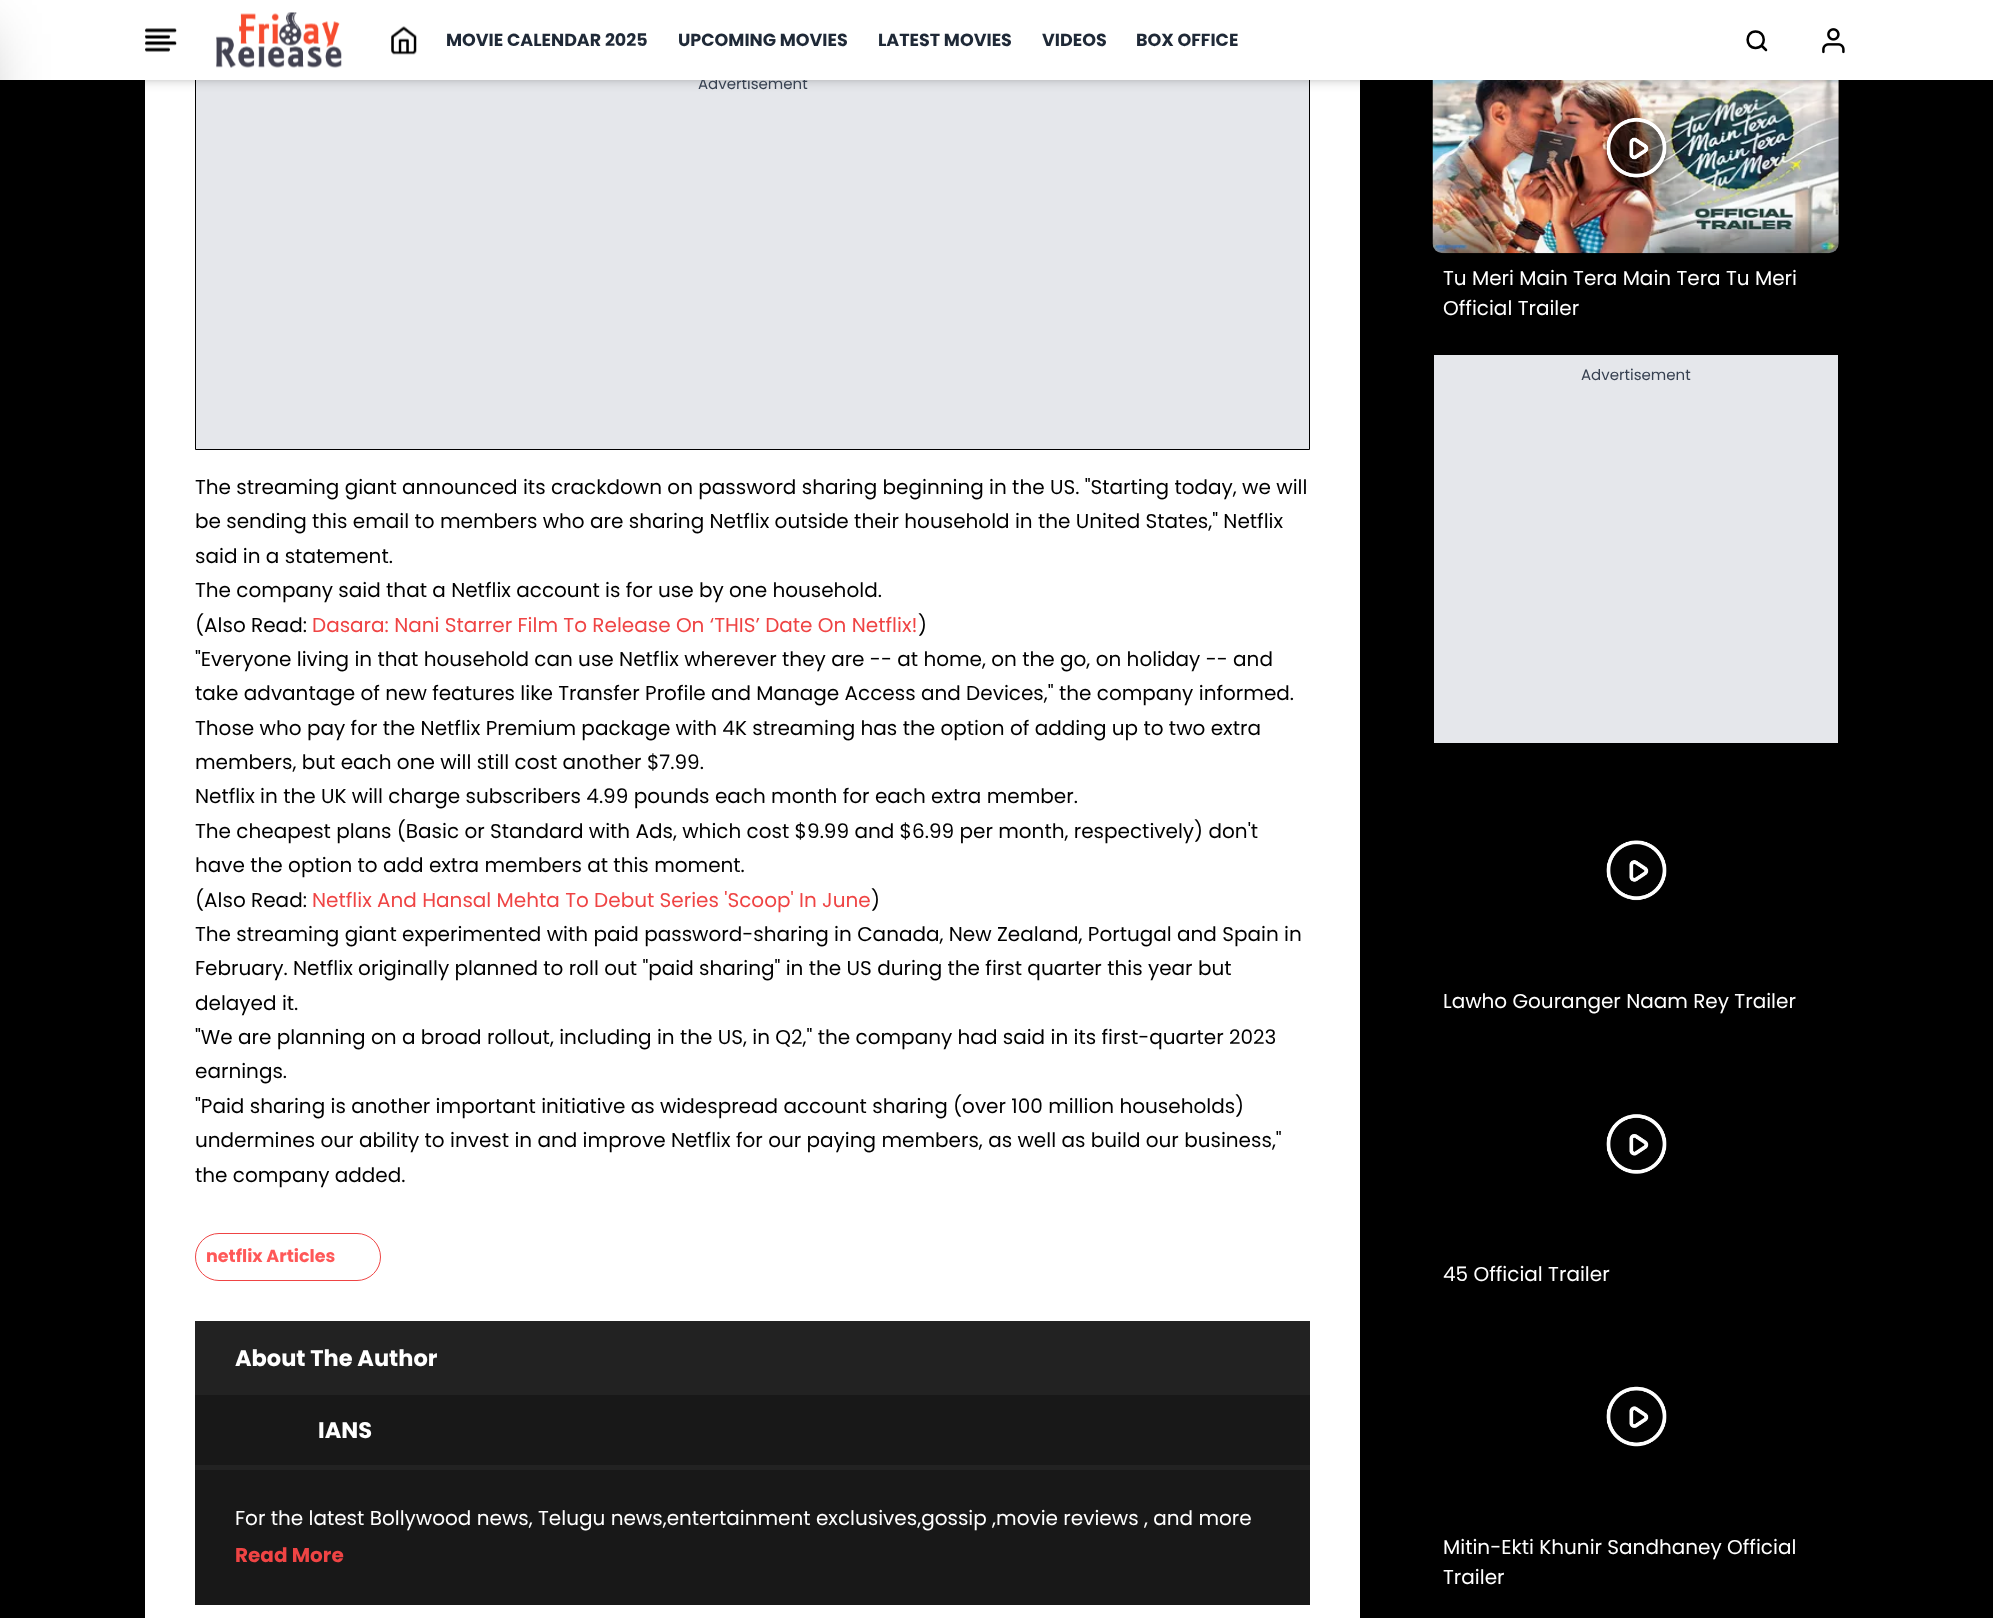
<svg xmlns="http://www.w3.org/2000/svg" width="1993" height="1618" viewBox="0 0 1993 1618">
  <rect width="100%" height="100%" fill="#000"/>
  <path d="M145 80h1215v1538H145z" fill="#fff"/>
  <path d="M196 80h1113v369H196z" fill="#e5e7eb"/>
  <path d="M195.5 63.5h1114v386H195.5z" fill="none" stroke="#000"/>
  <image x="1432" y="80" width="407" height="174" href="img/5.png"/>
  <path d="M3 5h1988v75H3z" fill="#0000001a" filter="blur(2.5px)"/>
  <path d="M1 6h1992v78H1z" fill="#0000001a" filter="blur(4px)"/>
  <rect x="195.5" y="1233.5" width="185" height="47" rx="23.5" fill="none" stroke="#ef4444"/>
  <path d="M195 1321h1115v149H195z" fill="#222"/>
  <path d="M195 1395h1115v70H195z" fill="#181818"/>
  <path d="M195 1470h1115v135H195z" fill="#181818"/>
  <image x="1603" y="117" width="67" height="67" href="img/6.png"/>
  <path d="M1434 355h404v388H1434z" fill="#e5e7eb"/>
  <image x="1606" y="840" width="61" height="61" href="img/7.png"/>
  <image x="1606" y="1114" width="61" height="60" href="img/8.png"/>
  <image x="1606" y="1386" width="61" height="61" href="img/9.png"/>
  <text x="698" y="89" font-family="Poppins" font-size="15" fill="#374151">Advertisement</text>
  <path d="M0 0h1993v80H0z" fill="#fff"/>
  <path d="M-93 34h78v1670H-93z" fill="#00000040" filter="blur(31px)"/>
  <image x="1822" y="28" width="23" height="26" href="img/4.png"/>
  <path d="M1755.5 48C1766.5 48 1766.5 31.5 1755.5 31.5C1745 31.5 1745 48 1755.5 48ZM1766 50L1761.5 45.5" fill="none" stroke="#000" stroke-width="2.5" stroke-linecap="round" stroke-linejoin="round"/>
  <g font-family="Poppins" font-size="17.5" font-weight="bold" fill="#1f2937">
    <text x="1136" y="46">BOX OFFICE</text>
    <text x="1042" y="46">VIDEOS</text>
    <text x="878" y="46">LATEST MOVIES</text>
    <text x="678" y="46">UPCOMING MOVIES</text>
    <text x="446" y="46">MOVIE CALENDAR 2025</text>
  </g>
  <image x="391" y="26" width="26" height="29" href="img/3.png"/>
  <image x="216" y="12" width="126" height="56" href="img/2.png"/>
  <image x="145" y="28" width="32" height="24" href="img/1.png"/>
  <g font-family="Poppins" font-size="20" fill="#000">
    <text x="195" y="494">The streaming giant announced its crackdown on password sharing beginning in the US. "Starting today, we will</text>
    <text x="195" y="528">be sending this email to members who are sharing Netflix outside their household in the United States," Netflix</text>
    <text x="195" y="563">said in a statement.</text>
    <text x="195" y="597">The company said that a Netflix account is for use by one household.</text>
    <text x="195" y="632">(Also Read:</text>
  </g>
  <text x="312" y="632" font-family="Poppins" font-size="20" fill="#ef4444">Dasara: Nani Starrer Film To Release On ‘THIS’ Date On Netflix!</text>
  <g font-family="Poppins" font-size="20" fill="#000">
    <text x="918" y="632">)</text>
    <text x="195" y="666">"Everyone living in that household can use Netflix wherever they are -- at home, on the go, on holiday -- and</text>
    <text x="195" y="700">take advantage of new features like Transfer Profile and Manage Access and Devices," the company informed.</text>
    <text x="195" y="735">Those who pay for the Netflix Premium package with 4K streaming has the option of adding up to two extra</text>
    <text x="195" y="769">members, but each one will still cost another $7.99.</text>
    <text x="195" y="803">Netflix in the UK will charge subscribers 4.99 pounds each month for each extra member.</text>
    <text x="195" y="838">The cheapest plans (Basic or Standard with Ads, which cost $9.99 and $6.99 per month, respectively) don't</text>
    <text x="195" y="872">have the option to add extra members at this moment.</text>
    <text x="195" y="907">(Also Read:</text>
  </g>
  <text x="312" y="907" font-family="Poppins" font-size="20" fill="#ef4444">Netflix And Hansal Mehta To Debut Series 'Scoop' In June</text>
  <g font-family="Poppins" font-size="20" fill="#000">
    <text x="871" y="907">)</text>
    <text x="195" y="941">The streaming giant experimented with paid password-sharing in Canada, New Zealand, Portugal and Spain in</text>
    <text x="195" y="975">February. Netflix originally planned to roll out "paid sharing" in the US during the first quarter this year but</text>
    <text x="195" y="1010">delayed it.</text>
    <text x="195" y="1044">"We are planning on a broad rollout, including in the US, in Q2," the company had said in its first-quarter 2023</text>
    <text x="195" y="1078">earnings.</text>
    <text x="195" y="1113">"Paid sharing is another important initiative as widespread account sharing (over 100 million households)</text>
    <text x="195" y="1147">undermines our ability to invest in and improve Netflix for our paying members, as well as build our business,"</text>
    <text x="195" y="1182">the company added.</text>
  </g>
  <text x="206" y="1262" font-family="Poppins" font-size="17.5" font-weight="bold" fill="#ff5858">netflix Articles</text>
  <g font-family="Poppins" font-size="22.5" font-weight="bold" fill="#fff">
    <text x="235" y="1366">About The Author</text>
    <text x="318" y="1438">IANS</text>
  </g>
  <text x="235" y="1525" font-family="Poppins" font-size="20" fill="#fff">For the latest Bollywood news, Telugu news,entertainment exclusives,gossip ,movie reviews , and more</text>
  <text x="235" y="1562" font-family="Poppins" font-size="20" font-weight="bold" fill="#ef4444">Read More</text>
  <g font-family="Poppins" font-size="20" fill="#fff">
    <text x="1443" y="285">Tu Meri Main Tera Main Tera Tu Meri</text>
    <text x="1443" y="315">Official Trailer</text>
  </g>
  <text x="1581" y="380" font-family="Poppins" font-size="15" fill="#374151">Advertisement</text>
  <g font-family="Poppins" font-size="20" fill="#fff">
    <text x="1443" y="1008">Lawho Gouranger Naam Rey Trailer</text>
    <text x="1443" y="1281">45 Official Trailer</text>
    <text x="1443" y="1554">Mitin-Ekti Khunir Sandhaney Official</text>
    <text x="1443" y="1584">Trailer</text>
  </g>
</svg>
